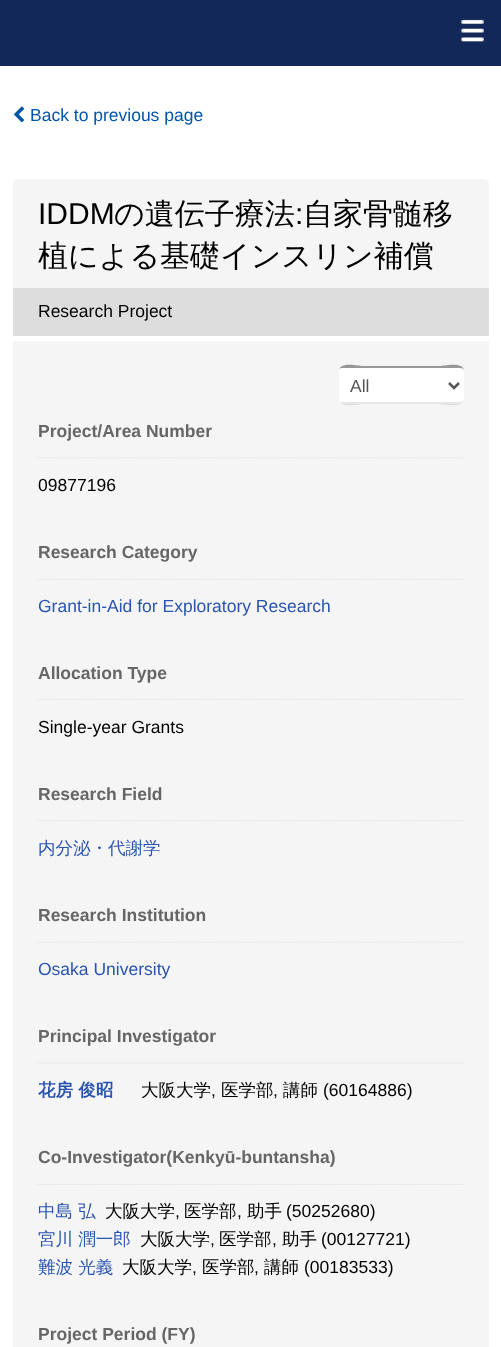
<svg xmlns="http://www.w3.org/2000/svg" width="501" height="1347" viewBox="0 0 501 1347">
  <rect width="100%" height="100%" fill="#fff"/>
  <path d="M0 0h501v66H0z" fill="#122858"/>
  <image x="461" y="19" width="23" height="23" href="img/1.png"/>
  <image x="14" y="106" width="11" height="17" href="img/2.png"/>
  <rect x="13" y="179" width="476" height="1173" rx="5" fill="#f5f5f5"/>
  <path d="M13 288h476v48H13z" fill="#ddd"/>
  <path d="M13 336h476v5H13z" fill="#fff"/>
  <rect x="339" y="366" width="125" height="38" rx="4" fill="#fff"/>
  <path d="M339 399C339 409 360 404 362 404H440C443 404 464 409 464 399C464 401 462 402 460 402H342C340 402 339 401 339 399Z" fill="#0000001a"/>
  <path d="M342 368H460C462 368 464 369 464 371C464 361 443 366 440 366H362C360 366 339 361 339 371C339 369 340 368 342 368Z" fill="#00000066"/>
  <path d="M449 383L454 388L459 383" fill="none" stroke="#555" stroke-width="2.5"/>
  <path d="M37.5 458H464" fill="none" stroke="#ddd" stroke-width="1.2" stroke-dasharray="1.25 1.25"/>
  <path d="M37.5 579.5H464" fill="none" stroke="#ddd" stroke-width="1.2" stroke-dasharray="1.25 1.25"/>
  <path d="M37.5 699.5H464" fill="none" stroke="#ddd" stroke-width="1.2" stroke-dasharray="1.25 1.25"/>
  <path d="M37.5 820.5H464" fill="none" stroke="#ddd" stroke-width="1.2" stroke-dasharray="1.25 1.25"/>
  <path d="M37.5 942H464" fill="none" stroke="#ddd" stroke-width="1.2" stroke-dasharray="1.25 1.25"/>
  <path d="M37.5 1063H464" fill="none" stroke="#ddd" stroke-width="1.2" stroke-dasharray="1.25 1.25"/>
  <path d="M37.5 1184.5H464" fill="none" stroke="#ddd" stroke-width="1.2" stroke-dasharray="1.25 1.25"/>
  <text x="30" y="121" font-family="Liberation Sans" font-size="17.5" fill="#05a">Back to previous page</text>
  <text x="38" y="224" font-family="Liberation Sans" font-size="30" fill="#000">IDDM</text>
  <text x="114" y="224" font-family="WenQuanYi Zen Hei" font-size="30" font-weight="500" fill="#000">の遺伝子療法</text>
  <text x="295" y="224" font-family="Liberation Sans" font-size="30" fill="#000">:</text>
  <g font-family="WenQuanYi Zen Hei" font-size="30" font-weight="500" fill="#000">
    <text x="303" y="224">自家骨髄移</text>
    <text x="38" y="266">植による基礎インスリン補償</text>
  </g>
  <text x="38" y="317" font-family="Liberation Sans" font-size="17.5" fill="#000">Research Project</text>
  <text x="350" y="392" font-family="Liberation Sans" font-size="17.5" fill="#555">All</text>
  <text x="38" y="437" font-family="Liberation Sans" font-size="17.5" font-weight="bold" fill="#666">Project/Area Number</text>
  <text x="38" y="491" font-family="Liberation Sans" font-size="17.5" fill="#000">09877196</text>
  <text x="38" y="558" font-family="Liberation Sans" font-size="17.5" font-weight="bold" fill="#666">Research Category</text>
  <text x="38" y="612" font-family="Liberation Sans" font-size="17.5" fill="#2954af">Grant-in-Aid for Exploratory Research</text>
  <text x="38" y="679" font-family="Liberation Sans" font-size="17.5" font-weight="bold" fill="#666">Allocation Type</text>
  <text x="38" y="733" font-family="Liberation Sans" font-size="17.5" fill="#000">Single-year Grants</text>
  <text x="38" y="800" font-family="Liberation Sans" font-size="17.5" font-weight="bold" fill="#666">Research Field</text>
  <text x="38" y="854" font-family="WenQuanYi Zen Hei" font-size="17.5" font-weight="500" fill="#2954af">内分泌・代謝学</text>
  <text x="38" y="921" font-family="Liberation Sans" font-size="17.5" font-weight="bold" fill="#666">Research Institution</text>
  <text x="38" y="975" font-family="Liberation Sans" font-size="17.5" fill="#2954af">Osaka University</text>
  <text x="38" y="1042" font-family="Liberation Sans" font-size="17.5" font-weight="bold" fill="#666">Principal Investigator</text>
  <text x="38" y="1096" font-family="WenQuanYi Zen Hei" font-size="17.5" font-weight="bold" fill="#2954af">花房 俊昭</text>
  <text x="141" y="1096" font-family="WenQuanYi Zen Hei" font-size="17.5" font-weight="500" fill="#000">大阪大学</text>
  <text x="211" y="1096" font-family="Liberation Sans" font-size="17.5" fill="#000">,</text>
  <text x="221" y="1096" font-family="WenQuanYi Zen Hei" font-size="17.5" font-weight="500" fill="#000">医学部</text>
  <text x="273" y="1096" font-family="Liberation Sans" font-size="17.5" fill="#000">,</text>
  <text x="283" y="1096" font-family="WenQuanYi Zen Hei" font-size="17.5" font-weight="500" fill="#000">講師</text>
  <text x="323" y="1096" font-family="Liberation Sans" font-size="17.5" fill="#000">(60164886)</text>
  <text x="38" y="1163" font-family="Liberation Sans" font-size="17.5" font-weight="bold" fill="#666">Co-Investigator(Kenkyū-buntansha)</text>
  <text x="38" y="1217" font-family="WenQuanYi Zen Hei" font-size="17.5" font-weight="500" fill="#2954af">中島 弘</text>
  <text x="105" y="1217" font-family="WenQuanYi Zen Hei" font-size="17.5" font-weight="500" fill="#000">大阪大学</text>
  <text x="175" y="1217" font-family="Liberation Sans" font-size="17.5" fill="#000">,</text>
  <text x="184" y="1217" font-family="WenQuanYi Zen Hei" font-size="17.5" font-weight="500" fill="#000">医学部</text>
  <text x="237" y="1217" font-family="Liberation Sans" font-size="17.5" fill="#000">,</text>
  <text x="247" y="1217" font-family="WenQuanYi Zen Hei" font-size="17.5" font-weight="500" fill="#000">助手</text>
  <text x="286" y="1217" font-family="Liberation Sans" font-size="17.5" fill="#000">(50252680)</text>
  <text x="38" y="1245" font-family="WenQuanYi Zen Hei" font-size="17.5" font-weight="500" fill="#2954af">宮川 潤一郎</text>
  <text x="140" y="1245" font-family="WenQuanYi Zen Hei" font-size="17.5" font-weight="500" fill="#000">大阪大学</text>
  <text x="210" y="1245" font-family="Liberation Sans" font-size="17.5" fill="#000">,</text>
  <text x="219" y="1245" font-family="WenQuanYi Zen Hei" font-size="17.5" font-weight="500" fill="#000">医学部</text>
  <text x="272" y="1245" font-family="Liberation Sans" font-size="17.5" fill="#000">,</text>
  <text x="282" y="1245" font-family="WenQuanYi Zen Hei" font-size="17.5" font-weight="500" fill="#000">助手</text>
  <text x="321" y="1245" font-family="Liberation Sans" font-size="17.5" fill="#000">(00127721)</text>
  <text x="38" y="1273" font-family="WenQuanYi Zen Hei" font-size="17.5" font-weight="500" fill="#2954af">難波 光義</text>
  <text x="122" y="1273" font-family="WenQuanYi Zen Hei" font-size="17.5" font-weight="500" fill="#000">大阪大学</text>
  <text x="192" y="1273" font-family="Liberation Sans" font-size="17.5" fill="#000">,</text>
  <text x="202" y="1273" font-family="WenQuanYi Zen Hei" font-size="17.5" font-weight="500" fill="#000">医学部</text>
  <text x="254" y="1273" font-family="Liberation Sans" font-size="17.5" fill="#000">,</text>
  <text x="264" y="1273" font-family="WenQuanYi Zen Hei" font-size="17.5" font-weight="500" fill="#000">講師</text>
  <text x="304" y="1273" font-family="Liberation Sans" font-size="17.5" fill="#000">(00183533)</text>
  <text x="38" y="1340" font-family="Liberation Sans" font-size="17.5" font-weight="bold" fill="#666">Project Period (FY)</text>
</svg>
